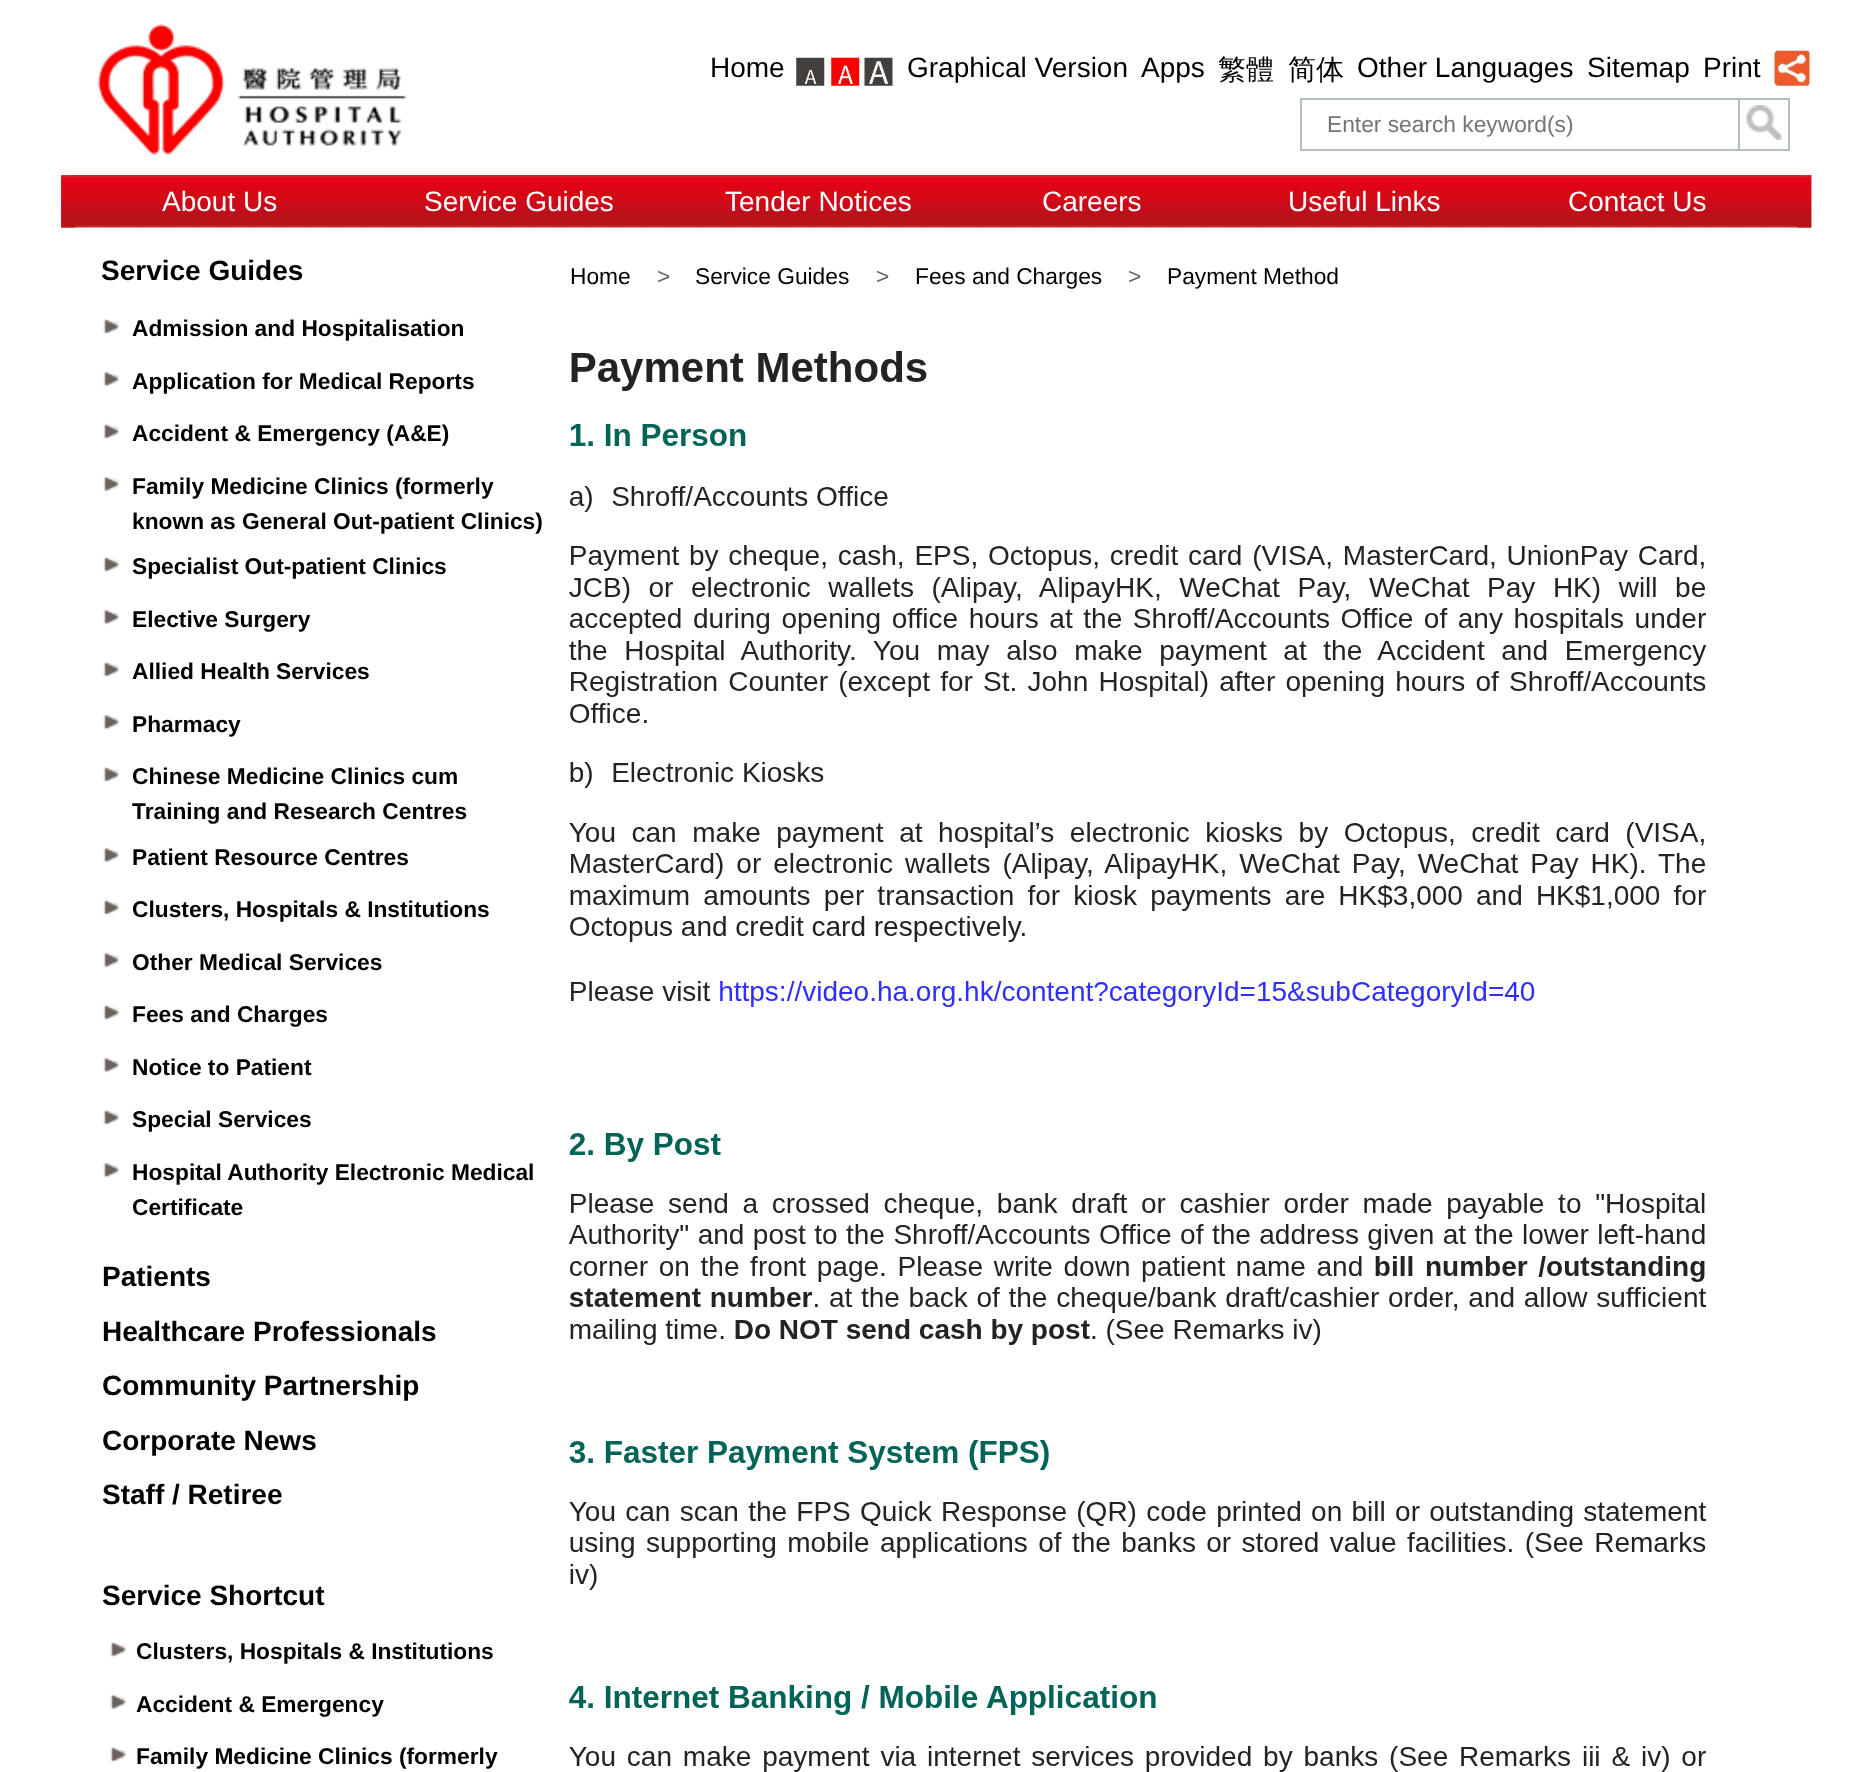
<svg xmlns="http://www.w3.org/2000/svg" width="1870" height="1772" viewBox="0 0 1870 1772">
  <rect width="100%" height="100%" fill="#fff"/>
  <image x="97" y="24" width="310" height="133" href="img/1.png"/>
  <image x="796" y="57" width="29" height="29" href="img/2.png"/>
  <image x="831" y="57" width="29" height="29" href="img/3.png"/>
  <image x="864" y="57" width="29" height="29" href="img/4.png"/>
  <image x="1774" y="50" width="36" height="36" href="img/5.png"/>
  <path d="M1300 98h438v2H1300z" fill="#b4bfbb"/>
  <path d="M1300 149h438v2H1300z" fill="#b4bfbb"/>
  <path d="M1300 98h2v53H1300z" fill="#b4bfbb"/>
  <image x="1746" y="105" width="36" height="35" href="img/6.png"/>
  <path d="M1739 99h50v51H1739z" fill="none" stroke="#b4bfbb" stroke-width="2"/>
  <image x="61" y="175" width="1751" height="53" href="img/7.png"/>
  <image x="61" y="175" width="15" height="53" href="img/8.png"/>
  <image x="1797" y="175" width="15" height="53" href="img/9.png"/>
  <image x="103" y="318" width="16" height="17" href="img/10.png"/>
  <image x="103" y="371" width="16" height="16" href="img/11.png"/>
  <image x="103" y="423" width="16" height="17" href="img/10.png"/>
  <image x="103" y="476" width="16" height="16" href="img/11.png"/>
  <image x="103" y="556" width="16" height="17" href="img/10.png"/>
  <image x="103" y="609" width="16" height="16" href="img/11.png"/>
  <image x="103" y="661" width="16" height="17" href="img/10.png"/>
  <image x="103" y="714" width="16" height="16" href="img/11.png"/>
  <image x="103" y="766" width="16" height="17" href="img/10.png"/>
  <image x="103" y="847" width="16" height="16" href="img/11.png"/>
  <image x="103" y="899" width="16" height="17" href="img/10.png"/>
  <image x="103" y="952" width="16" height="16" href="img/11.png"/>
  <image x="103" y="1004" width="16" height="17" href="img/10.png"/>
  <image x="103" y="1057" width="16" height="16" href="img/11.png"/>
  <image x="103" y="1109" width="16" height="17" href="img/10.png"/>
  <image x="103" y="1162" width="16" height="16" href="img/11.png"/>
  <image x="110" y="1641" width="16" height="17" href="img/10.png"/>
  <image x="110" y="1694" width="16" height="16" href="img/11.png"/>
  <image x="110" y="1746" width="16" height="17" href="img/10.png"/>
  <image x="568" y="351" width="1139" height="1421" href="img/12.png"/>
  <g font-family="Liberation Sans" font-size="28" fill="#000">
    <text x="710" y="77">Home</text>
    <text x="907" y="77">Graphical Version</text>
    <text x="1141" y="77">Apps</text>
  </g>
  <g font-family="WenQuanYi Zen Hei" font-size="28" font-weight="500" fill="#000">
    <text x="1218" y="79">繁體</text>
    <text x="1288" y="79">简体</text>
  </g>
  <g font-family="Liberation Sans" font-size="28" fill="#000">
    <text x="1357" y="77">Other Languages</text>
    <text x="1587" y="77">Sitemap</text>
    <text x="1703" y="77">Print</text>
  </g>
  <text x="1327" y="132" font-family="Liberation Sans" font-size="22.75" fill="#757575">Enter search keyword(s)</text>
  <g font-family="Liberation Sans" font-size="28" fill="#fff">
    <text x="162" y="211">About Us</text>
    <text x="424" y="211">Service Guides</text>
    <text x="725" y="211">Tender Notices</text>
    <text x="1042" y="211">Careers</text>
    <text x="1288" y="211">Useful Links</text>
    <text x="1568" y="211">Contact Us</text>
  </g>
  <text x="101" y="280" font-family="Liberation Sans" font-size="28" font-weight="bold" fill="#000">Service Guides</text>
  <g font-family="Liberation Sans" font-size="22.75" font-weight="bold" fill="#000">
    <text x="132" y="336">Admission and Hospitalisation</text>
    <text x="132" y="389">Application for Medical Reports</text>
    <text x="132" y="441">Accident &amp; Emergency (A&amp;E)</text>
    <text x="132" y="494">Family Medicine Clinics (formerly</text>
    <text x="132" y="529">known as General Out-patient Clinics)</text>
    <text x="132" y="574">Specialist Out-patient Clinics</text>
    <text x="132" y="627">Elective Surgery</text>
    <text x="132" y="679">Allied Health Services</text>
    <text x="132" y="732">Pharmacy</text>
    <text x="132" y="784">Chinese Medicine Clinics cum</text>
    <text x="132" y="819">Training and Research Centres</text>
    <text x="132" y="865">Patient Resource Centres</text>
    <text x="132" y="917">Clusters, Hospitals &amp; Institutions</text>
    <text x="132" y="970">Other Medical Services</text>
    <text x="132" y="1022">Fees and Charges</text>
    <text x="132" y="1075">Notice to Patient</text>
    <text x="132" y="1127">Special Services</text>
    <text x="132" y="1180">Hospital Authority Electronic Medical</text>
    <text x="132" y="1215">Certificate</text>
  </g>
  <g font-family="Liberation Sans" font-size="28" font-weight="bold" fill="#000">
    <text x="102" y="1286">Patients</text>
    <text x="102" y="1341">Healthcare Professionals</text>
    <text x="102" y="1395">Community Partnership</text>
    <text x="102" y="1450">Corporate News</text>
    <text x="102" y="1504">Staff / Retiree</text>
    <text x="102" y="1605">Service Shortcut</text>
  </g>
  <g font-family="Liberation Sans" font-size="22.75" font-weight="bold" fill="#000">
    <text x="136" y="1659">Clusters, Hospitals &amp; Institutions</text>
    <text x="136" y="1712">Accident &amp; Emergency</text>
    <text x="136" y="1764">Family Medicine Clinics (formerly</text>
  </g>
  <text x="570" y="284" font-family="Liberation Sans" font-size="22.75" fill="#000">Home</text>
  <text x="657" y="284" font-family="Liberation Sans" font-size="22.75" fill="#666">&gt;</text>
  <text x="695" y="284" font-family="Liberation Sans" font-size="22.75" fill="#000">Service Guides</text>
  <text x="876" y="284" font-family="Liberation Sans" font-size="22.75" fill="#666">&gt;</text>
  <text x="915" y="284" font-family="Liberation Sans" font-size="22.75" fill="#000">Fees and Charges</text>
  <text x="1128" y="284" font-family="Liberation Sans" font-size="22.75" fill="#666">&gt;</text>
  <text x="1167" y="284" font-family="Liberation Sans" font-size="22.75" fill="#000">Payment Method</text>
</svg>
